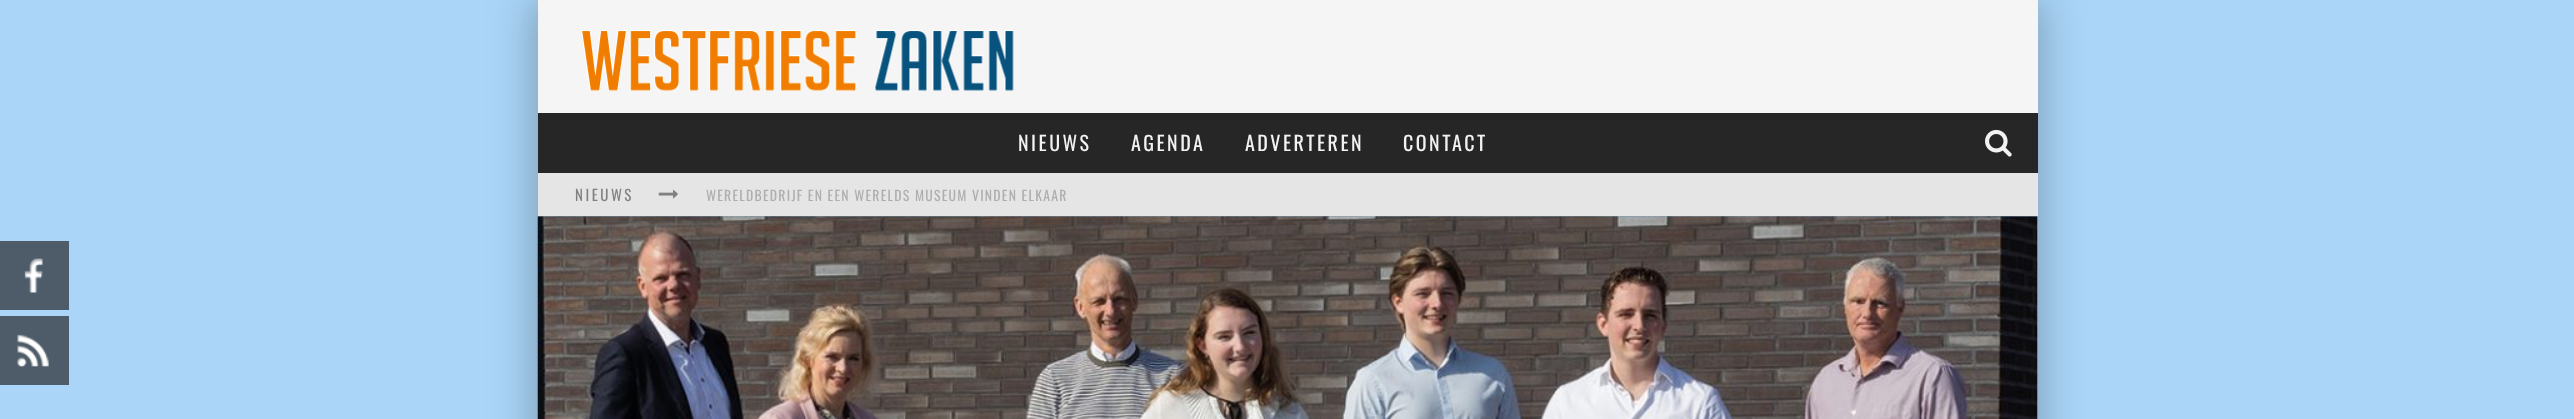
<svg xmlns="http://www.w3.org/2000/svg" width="2574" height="419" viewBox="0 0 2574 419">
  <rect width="100%" height="100%" fill="#aad5f8"/>
  <path d="M525 0h1500v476H525z" fill="#00000026" filter="blur(19px)"/>
  <path d="M550 0h1500v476H550z" fill="#00000026" filter="blur(19px)"/>
  <path d="M538 0h1500v113H538z" fill="#f5f5f5"/>
  <image x="581" y="30" width="433" height="61" href="img/1.png"/>
  <path d="M538 113h1500v60H538z" fill="#262626"/>
  <image x="1985" y="129" width="27" height="28" href="img/2.png"/>
  <path d="M538 173h1500v43H538z" fill="#e5e5e5"/>
  <image x="658" y="189" width="20" height="10" href="img/3.png"/>
  <path d="M0 241h69v69H0z" fill="#4d5c68"/>
  <image x="24" y="258" width="19" height="35" href="img/4.png"/>
  <path d="M0 316h69v69H0z" fill="#4d5c68"/>
  <image x="17" y="334" width="32" height="33" href="img/5.png"/>
  <image x="537" y="216" width="1501" height="203" href="img/6.png"/>
  <g font-family="Oswald" font-size="20" letter-spacing="2.5" fill="#f2f2f2">
    <text x="1018" y="151">NIEUWS</text>
    <text x="1131" y="151">AGENDA</text>
    <text x="1245" y="151">ADVERTEREN</text>
    <text x="1403" y="151">CONTACT</text>
  </g>
  <text x="575" y="201" font-family="Oswald" font-size="15" letter-spacing="2.5" fill="#808080">NIEUWS</text>
  <text x="706" y="201" font-family="Oswald" font-size="13.75" letter-spacing="1.25" fill="#aeaeae">WERELDBEDRIJF EN EEN WERELDS MUSEUM VINDEN ELKAAR</text>
</svg>
